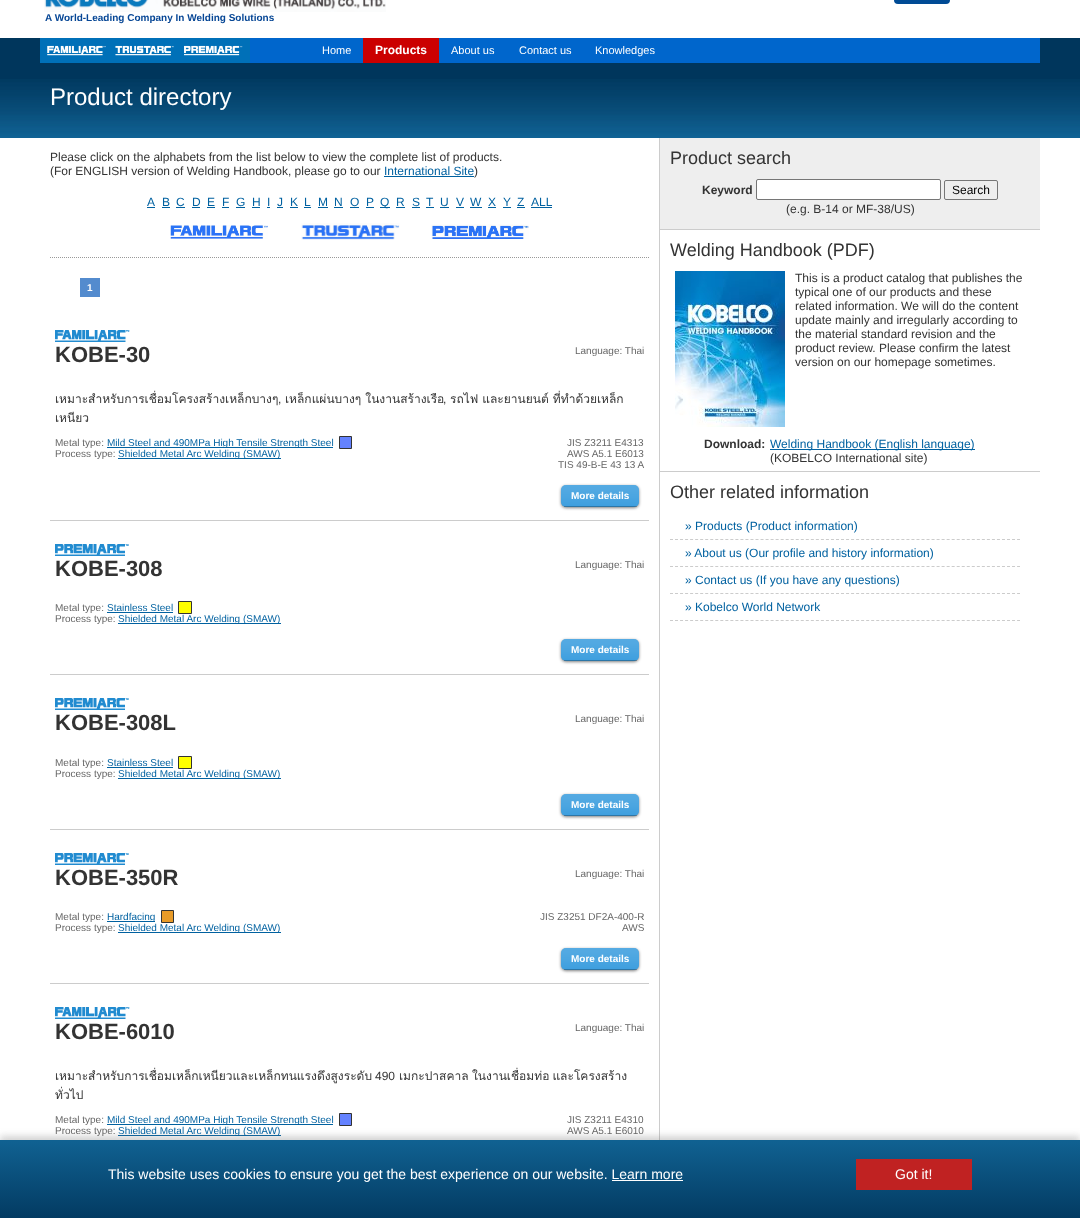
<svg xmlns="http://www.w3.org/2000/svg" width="1080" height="1218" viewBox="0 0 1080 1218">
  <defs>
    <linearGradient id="g1" gradientUnits="userSpaceOnUse" x1="540" y1="1140" x2="540" y2="1218"><stop offset="0.02" stop-color="#106191"/><stop offset="1" stop-color="#033b62"/></linearGradient>
  </defs>
  <rect width="100%" height="100%" fill="#fff"/>
  <rect x="894" y="-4" width="56" height="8" rx="4" fill="#004b95"/>
  <image x="44" y="0" width="342" height="12" href="img/1.png"/>
  <path d="M0 38h1080v41H0z" fill="#00365c"/>
  <path d="M250 38h790v25H250z" fill="#06c"/>
  <image x="40" y="38" width="210" height="25" href="img/2.png"/>
  <path d="M363 38h76v25H363z" fill="#cb0000"/>
  <image x="0" y="79" width="1080" height="59" href="img/3.png"/>
  <path d="M659 138h1v1002H659z" fill="#ccc"/>
  <path d="M384 176h90v1H384z" fill="#0061a0"/>
  <path d="M147 207h8v1H147z" fill="#0061a0"/>
  <path d="M162 207h8v1H162z" fill="#0061a0"/>
  <path d="M176 207h9v1H176z" fill="#0061a0"/>
  <path d="M192 207h8v1H192z" fill="#0061a0"/>
  <path d="M207 207h8v1H207z" fill="#0061a0"/>
  <path d="M222 207h7v1H222z" fill="#0061a0"/>
  <path d="M236 207h9v1H236z" fill="#0061a0"/>
  <path d="M252 207h8v1H252z" fill="#0061a0"/>
  <path d="M267 207h3v1H267z" fill="#0061a0"/>
  <path d="M277 207h6v1H277z" fill="#0061a0"/>
  <path d="M290 207h8v1H290z" fill="#0061a0"/>
  <path d="M304 207h7v1H304z" fill="#0061a0"/>
  <path d="M318 207h10v1H318z" fill="#0061a0"/>
  <path d="M334 207h9v1H334z" fill="#0061a0"/>
  <path d="M350 207h9v1H350z" fill="#0061a0"/>
  <path d="M366 207h8v1H366z" fill="#0061a0"/>
  <path d="M380 207h10v1H380z" fill="#0061a0"/>
  <path d="M396 207h9v1H396z" fill="#0061a0"/>
  <path d="M412 207h8v1H412z" fill="#0061a0"/>
  <path d="M426 207h8v1H426z" fill="#0061a0"/>
  <path d="M440 207h9v1H440z" fill="#0061a0"/>
  <path d="M456 207h8v1H456z" fill="#0061a0"/>
  <path d="M470 207h12v1H470z" fill="#0061a0"/>
  <path d="M488 207h8v1H488z" fill="#0061a0"/>
  <path d="M503 207h8v1H503z" fill="#0061a0"/>
  <path d="M517 207h8v1H517z" fill="#0061a0"/>
  <path d="M531 207h21v1H531z" fill="#0061a0"/>
  <image x="170" y="225" width="98" height="14" href="img/4.png"/>
  <image x="301" y="223" width="99" height="17" href="img/5.png"/>
  <image x="431" y="224" width="98" height="15" href="img/6.png"/>
  <path d="M50 257.5H649" fill="none" stroke="#999" stroke-dasharray="1 1"/>
  <path d="M80 278h20v19H80z" fill="#538bce"/>
  <path d="M50 520h599v1H50z" fill="#ccc"/>
  <image x="55" y="330" width="75" height="12" href="img/7.png"/>
  <path d="M107 447h226v1H107z" fill="#0061a0"/>
  <path d="M339.5 436.5h12v12H339.5z" fill="#6482ff" stroke="#333"/>
  <path d="M118 458h163v1H118z" fill="#0061a0"/>
  <rect x="561" y="486" width="78" height="22" rx="5" fill="#00000080" filter="blur(1.5px)"/>
  <rect x="561" y="485" width="78" height="22" rx="5" fill="#1c8ed9"/>
  <image x="561" y="485" width="78" height="22" href="img/8.png"/>
  <path d="M564 506h73v1H564z" fill="#00000040"/>
  <path d="M50 674h599v1H50z" fill="#ccc"/>
  <image x="55" y="544" width="74" height="12" href="img/9.png"/>
  <path d="M107 612h66v1H107z" fill="#0061a0"/>
  <path d="M178.5 601.5h13v12H178.5z" fill="#ff0" stroke="#333"/>
  <path d="M118 623h163v1H118z" fill="#0061a0"/>
  <rect x="561" y="640" width="78" height="22" rx="5" fill="#00000080" filter="blur(1.5px)"/>
  <rect x="561" y="639" width="78" height="22" rx="5" fill="#1c8ed9"/>
  <image x="561" y="639" width="78" height="22" href="img/8.png"/>
  <path d="M564 660h73v1H564z" fill="#00000040"/>
  <path d="M50 829h599v1H50z" fill="#ccc"/>
  <image x="55" y="698" width="74" height="12" href="img/9.png"/>
  <path d="M107 767h66v1H107z" fill="#0061a0"/>
  <path d="M178.5 756.5h13v12H178.5z" fill="#ff0" stroke="#333"/>
  <path d="M118 778h163v1H118z" fill="#0061a0"/>
  <rect x="561" y="795" width="78" height="22" rx="5" fill="#00000080" filter="blur(1.5px)"/>
  <rect x="561" y="794" width="78" height="22" rx="5" fill="#1c8ed9"/>
  <image x="561" y="794" width="78" height="22" href="img/8.png"/>
  <path d="M564 815h73v1H564z" fill="#00000040"/>
  <path d="M50 983h599v1H50z" fill="#ccc"/>
  <image x="55" y="853" width="74" height="12" href="img/9.png"/>
  <path d="M107 921h48v1H107z" fill="#0061a0"/>
  <path d="M161.5 910.5h12v12H161.5z" fill="#e89b28" stroke="#333"/>
  <path d="M118 932h163v1H118z" fill="#0061a0"/>
  <rect x="561" y="949" width="78" height="22" rx="5" fill="#00000080" filter="blur(1.5px)"/>
  <rect x="561" y="948" width="78" height="22" rx="5" fill="#1c8ed9"/>
  <image x="561" y="948" width="78" height="22" href="img/8.png"/>
  <path d="M564 969h73v1H564z" fill="#00000040"/>
  <image x="55" y="1007" width="75" height="12" href="img/7.png"/>
  <path d="M107 1124h226v1H107z" fill="#0061a0"/>
  <path d="M339.5 1113.5h12v12H339.5z" fill="#6482ff" stroke="#333"/>
  <path d="M118 1135h163v1H118z" fill="#0061a0"/>
  <path d="M660 138h380v91H660z" fill="#eee"/>
  <rect x="756.5" y="179.5" width="184" height="20" rx="1.5" fill="#fff" stroke="#767676"/>
  <rect x="944.5" y="180.5" width="53" height="19" rx="1.5" fill="none" stroke="#767676"/>
  <path d="M660 229h380v1H660z" fill="#ccc"/>
  <image x="675" y="271" width="110" height="156" href="img/10.png"/>
  <path d="M770 449h205v1H770z" fill="#0061a0"/>
  <path d="M660 471h380v1H660z" fill="#ccc"/>
  <path d="M670 539.5H1020" fill="none" stroke="#ccc" stroke-dasharray="3 2.03"/>
  <path d="M670 566.5H1020" fill="none" stroke="#ccc" stroke-dasharray="3 2.03"/>
  <path d="M670 593.5H1020" fill="none" stroke="#ccc" stroke-dasharray="3 2.03"/>
  <path d="M670 620.5H1020" fill="none" stroke="#ccc" stroke-dasharray="3 2.03"/>
  <path d="M0 1136h1080v78H0z" fill="#7070704f" filter="blur(3.5px)"/>
  <path d="M0 1140h1080v78H0z" fill="url(#g1)"/>
  <path d="M612 1180h71v1H612z" fill="#fff"/>
  <path d="M856 1159h116v31H856z" fill="#c02222"/>
  <text x="45" y="21" font-family="Liberation Sans" font-size="10" font-weight="bold" fill="#064695">A World-Leading Company In Welding Solutions</text>
  <text x="322" y="54" font-family="Liberation Sans" font-size="11" fill="#fff">Home</text>
  <text x="375" y="54" font-family="Liberation Sans" font-size="12" font-weight="bold" fill="#fff">Products</text>
  <g font-family="Liberation Sans" font-size="11" fill="#fff">
    <text x="451" y="54">About us</text>
    <text x="519" y="54">Contact us</text>
    <text x="595" y="54">Knowledges</text>
  </g>
  <text x="50" y="105" font-family="Liberation Sans" font-size="24" fill="#fff">Product directory</text>
  <g font-family="Liberation Sans" font-size="12" fill="#333">
    <text x="50" y="161">Please click on the alphabets from the list below to view the complete list of products.</text>
    <text x="50" y="175">(For ENGLISH version of Welding Handbook, please go to our</text>
  </g>
  <text x="384" y="175" font-family="Liberation Sans" font-size="12" fill="#0061a0">International Site</text>
  <text x="474" y="175" font-family="Liberation Sans" font-size="12" fill="#333">)</text>
  <g font-family="Liberation Sans" font-size="12" fill="#0061a0">
    <text x="147" y="206">A</text>
    <text x="162" y="206">B</text>
    <text x="176" y="206">C</text>
    <text x="192" y="206">D</text>
    <text x="207" y="206">E</text>
    <text x="222" y="206">F</text>
    <text x="236" y="206">G</text>
    <text x="252" y="206">H</text>
    <text x="267" y="206">I</text>
    <text x="277" y="206">J</text>
    <text x="290" y="206">K</text>
    <text x="304" y="206">L</text>
    <text x="318" y="206">M</text>
    <text x="334" y="206">N</text>
    <text x="350" y="206">O</text>
    <text x="366" y="206">P</text>
    <text x="380" y="206">Q</text>
    <text x="396" y="206">R</text>
    <text x="412" y="206">S</text>
    <text x="426" y="206">T</text>
    <text x="440" y="206">U</text>
    <text x="456" y="206">V</text>
    <text x="470" y="206">W</text>
    <text x="488" y="206">X</text>
    <text x="503" y="206">Y</text>
    <text x="517" y="206">Z</text>
    <text x="531" y="206">ALL</text>
  </g>
  <text x="87" y="291" font-family="Liberation Sans" font-size="10" font-weight="bold" fill="#fff">1</text>
  <text x="55" y="362" font-family="Liberation Sans" font-size="22" font-weight="bold" fill="#333">KOBE-30</text>
  <text x="575" y="354" font-family="Liberation Sans" font-size="10" fill="#666">Language: Thai</text>
  <text x="55" y="403" font-family="Loma" font-size="12" fill="#333">เหมาะสำหรับการเชื่อมโครงสร้างเหล็กบางๆ</text>
  <text x="278" y="403" font-family="Liberation Sans" font-size="12" fill="#333">,</text>
  <text x="285" y="403" font-family="Loma" font-size="12" fill="#333">เหล็กแผ่นบางๆ ในงานสร้างเรือ</text>
  <text x="443" y="403" font-family="Liberation Sans" font-size="12" fill="#333">,</text>
  <g font-family="Loma" font-size="12" fill="#333">
    <text x="450" y="403">รถไฟ และยานยนต์ ที่ทำด้วยเหล็ก</text>
    <text x="55" y="422">เหนียว</text>
  </g>
  <text x="55" y="446" font-family="Liberation Sans" font-size="10" fill="#666">Metal type:</text>
  <text x="107" y="446" font-family="Liberation Sans" font-size="10" fill="#0061a0">Mild Steel and 490MPa High Tensile Strength Steel</text>
  <text x="55" y="457" font-family="Liberation Sans" font-size="10" fill="#666">Process type:</text>
  <text x="118" y="457" font-family="Liberation Sans" font-size="10" fill="#0061a0">Shielded Metal Arc Welding (SMAW)</text>
  <g font-family="Liberation Sans" font-size="10" fill="#666">
    <text x="567" y="446">JIS Z3211 E4313</text>
    <text x="567" y="457">AWS A5.1 E6013</text>
    <text x="558" y="468">TIS 49-B-E 43 13 A</text>
  </g>
  <text x="571" y="499" font-family="Liberation Sans" font-size="10" font-weight="bold" fill="#fff">More details</text>
  <text x="55" y="576" font-family="Liberation Sans" font-size="22" font-weight="bold" fill="#333">KOBE-308</text>
  <g font-family="Liberation Sans" font-size="10" fill="#666">
    <text x="575" y="568">Language: Thai</text>
    <text x="55" y="611">Metal type:</text>
  </g>
  <text x="107" y="611" font-family="Liberation Sans" font-size="10" fill="#0061a0">Stainless Steel</text>
  <text x="55" y="622" font-family="Liberation Sans" font-size="10" fill="#666">Process type:</text>
  <text x="118" y="622" font-family="Liberation Sans" font-size="10" fill="#0061a0">Shielded Metal Arc Welding (SMAW)</text>
  <text x="571" y="653" font-family="Liberation Sans" font-size="10" font-weight="bold" fill="#fff">More details</text>
  <text x="55" y="730" font-family="Liberation Sans" font-size="22" font-weight="bold" fill="#333">KOBE-308L</text>
  <g font-family="Liberation Sans" font-size="10" fill="#666">
    <text x="575" y="722">Language: Thai</text>
    <text x="55" y="766">Metal type:</text>
  </g>
  <text x="107" y="766" font-family="Liberation Sans" font-size="10" fill="#0061a0">Stainless Steel</text>
  <text x="55" y="777" font-family="Liberation Sans" font-size="10" fill="#666">Process type:</text>
  <text x="118" y="777" font-family="Liberation Sans" font-size="10" fill="#0061a0">Shielded Metal Arc Welding (SMAW)</text>
  <text x="571" y="808" font-family="Liberation Sans" font-size="10" font-weight="bold" fill="#fff">More details</text>
  <text x="55" y="885" font-family="Liberation Sans" font-size="22" font-weight="bold" fill="#333">KOBE-350R</text>
  <g font-family="Liberation Sans" font-size="10" fill="#666">
    <text x="575" y="877">Language: Thai</text>
    <text x="55" y="920">Metal type:</text>
  </g>
  <text x="107" y="920" font-family="Liberation Sans" font-size="10" fill="#0061a0">Hardfacing</text>
  <text x="55" y="931" font-family="Liberation Sans" font-size="10" fill="#666">Process type:</text>
  <text x="118" y="931" font-family="Liberation Sans" font-size="10" fill="#0061a0">Shielded Metal Arc Welding (SMAW)</text>
  <g font-family="Liberation Sans" font-size="10" fill="#666">
    <text x="540" y="920">JIS Z3251 DF2A-400-R</text>
    <text x="622" y="931">AWS</text>
  </g>
  <text x="571" y="962" font-family="Liberation Sans" font-size="10" font-weight="bold" fill="#fff">More details</text>
  <text x="55" y="1039" font-family="Liberation Sans" font-size="22" font-weight="bold" fill="#333">KOBE-6010</text>
  <text x="575" y="1031" font-family="Liberation Sans" font-size="10" fill="#666">Language: Thai</text>
  <text x="55" y="1080" font-family="Loma" font-size="12" fill="#333">เหมาะสำหรับการเชื่อมเหล็กเหนียวและเหล็กทนแรงดึงสูงระดับ</text>
  <text x="375" y="1080" font-family="Liberation Sans" font-size="12" fill="#333">490</text>
  <g font-family="Loma" font-size="12" fill="#333">
    <text x="399" y="1080">เมกะปาสคาล</text>
    <text x="472" y="1080" word-spacing="-1">ในงานเชื่อมท่อ และโครงสร้าง</text>
    <text x="55" y="1099">ทั่วไป</text>
  </g>
  <text x="55" y="1123" font-family="Liberation Sans" font-size="10" fill="#666">Metal type:</text>
  <text x="107" y="1123" font-family="Liberation Sans" font-size="10" fill="#0061a0">Mild Steel and 490MPa High Tensile Strength Steel</text>
  <text x="55" y="1134" font-family="Liberation Sans" font-size="10" fill="#666">Process type:</text>
  <text x="118" y="1134" font-family="Liberation Sans" font-size="10" fill="#0061a0">Shielded Metal Arc Welding (SMAW)</text>
  <g font-family="Liberation Sans" font-size="10" fill="#666">
    <text x="567" y="1123">JIS Z3211 E4310</text>
    <text x="567" y="1134">AWS A5.1 E6010</text>
  </g>
  <text x="670" y="164" font-family="Liberation Sans" font-size="18" fill="#333">Product search</text>
  <text x="702" y="194" font-family="Liberation Sans" font-size="12" font-weight="bold" fill="#333">Keyword</text>
  <text x="952" y="194" font-family="Liberation Sans" font-size="12" fill="#000">Search</text>
  <text x="786" y="213" font-family="Liberation Sans" font-size="12" fill="#333">(e.g. B-14 or MF-38/US)</text>
  <text x="670" y="256" font-family="Liberation Sans" font-size="18" fill="#333">Welding Handbook (PDF)</text>
  <g font-family="Liberation Sans" font-size="12" fill="#333">
    <text x="795" y="282">This is a product catalog that publishes the</text>
    <text x="795" y="296">typical one of our products and these</text>
    <text x="795" y="310">related information. We will do the content</text>
    <text x="795" y="324">update mainly and irregularly according to</text>
    <text x="795" y="338">the material standard revision and the</text>
    <text x="795" y="352">product review. Please confirm the latest</text>
    <text x="795" y="366">version on our homepage sometimes.</text>
  </g>
  <text x="704" y="448" font-family="Liberation Sans" font-size="12" font-weight="bold" fill="#333">Download:</text>
  <text x="770" y="448" font-family="Liberation Sans" font-size="12" fill="#0061a0">Welding Handbook (English language)</text>
  <text x="770" y="462" font-family="Liberation Sans" font-size="12" fill="#333">(KOBELCO International site)</text>
  <text x="670" y="498" font-family="Liberation Sans" font-size="18" fill="#333">Other related information</text>
  <g font-family="Liberation Sans" font-size="12" fill="#0061a0">
    <text x="685" y="530">» Products (Product information)</text>
    <text x="685" y="557">» About us (Our profile and history information)</text>
    <text x="685" y="584">» Contact us (If you have any questions)</text>
    <text x="685" y="611">» Kobelco World Network</text>
  </g>
  <g font-family="Liberation Sans" font-size="14" fill="#fff">
    <text x="108" y="1179">This website uses cookies to ensure you get the best experience on our website. Learn more</text>
    <text x="895" y="1179">Got it!</text>
  </g>
</svg>
